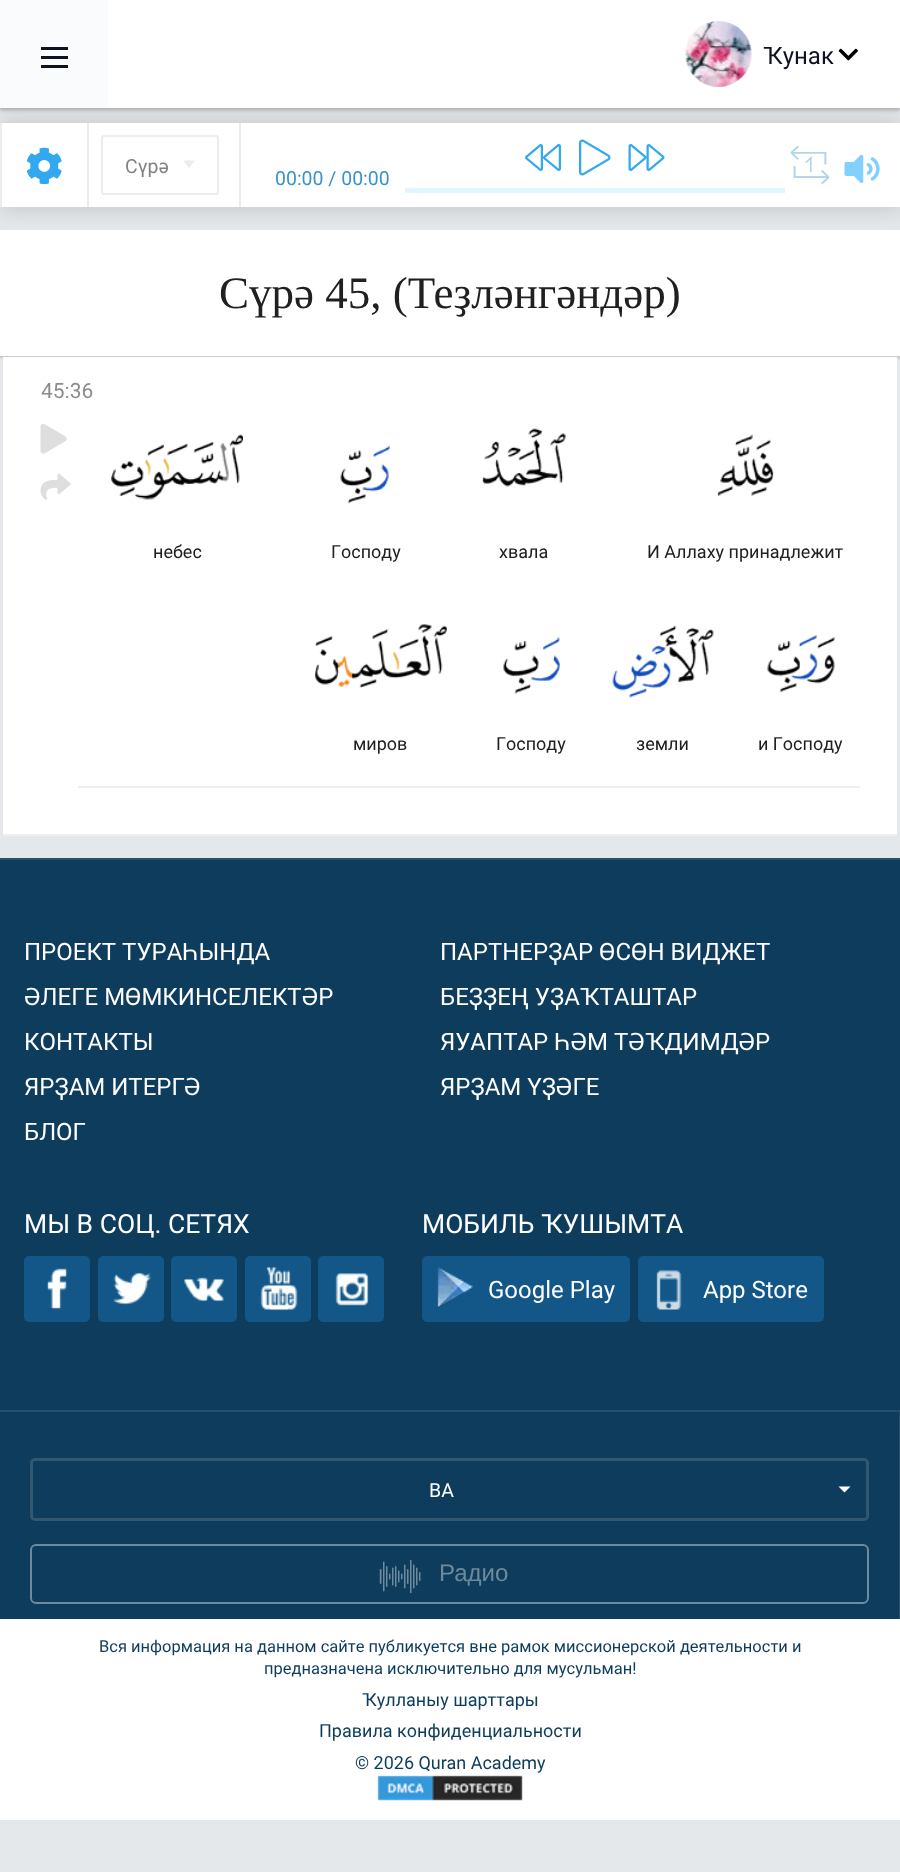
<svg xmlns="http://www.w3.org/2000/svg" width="900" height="1872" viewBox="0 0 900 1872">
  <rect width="100%" height="100%" fill="#e5e8eb"/>
  <path d="M0 2h900v108H0z" fill="#00000033" filter="blur(1.5px)"/>
  <path d="M0 2h900v108H0z" fill="#aaaaaa80" filter="blur(3px)"/>
  <path d="M2 231h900v128H2z" fill="#0000001a" filter="blur(1px)"/>
  <path d="M0 230h900v126H0z" fill="#fff"/>
  <path d="M-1 122h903v87H-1z" fill="#00000026" filter="blur(11px)"/>
  <path d="M108 0h792v108H108z" fill="#fff"/>
  <path d="M0 0h108v108H0z" fill="#fafbfc"/>
  <path d="M41 47h27v3H41z" fill="#0d1322"/>
  <path d="M41 56h27v3H41z" fill="#0d1322"/>
  <path d="M41 65h27v3H41z" fill="#0d1322"/>
  <image x="685" y="21" width="67" height="66" href="img/1.png"/>
  <image x="838" y="48" width="20" height="13" href="img/2.png"/>
  <path d="M2 123h898v84H2z" fill="#fff"/>
  <path d="M87 123h2v84H87z" fill="#ececec"/>
  <path d="M0 123h2v84H0z" fill="#ececec"/>
  <image x="26" y="147" width="36" height="38" href="img/3.png"/>
  <rect x="102" y="136" width="116" height="58" rx="2" fill="none" stroke="#ececec" stroke-width="2"/>
  <path d="M183 160.5H195L189 168Z" fill="#ececec"/>
  <path d="M239 123h2v84H239z" fill="#ececec"/>
  <image x="525" y="144" width="36" height="27" href="img/4.png"/>
  <image x="579" y="139" width="32" height="37" href="img/5.png"/>
  <image x="628" y="144" width="37" height="27" href="img/6.png"/>
  <path d="M405 188h380v5H405z" fill="#e0f5ff"/>
  <image x="790" y="146" width="40" height="38" href="img/7.png"/>
  <image x="844" y="154" width="36" height="29" href="img/8.png"/>
  <path d="M0 356h900v2H0z" fill="#ccc"/>
  <path d="M3 357h894v477H3z" fill="#fff"/>
  <path d="M3 834h894v2H3z" fill="#eee"/>
  <image x="40" y="423" width="27" height="31" href="img/9.png"/>
  <image x="40" y="473" width="31" height="27" href="img/10.png"/>
  <image x="111" y="434" width="132" height="66" href="img/11.png"/>
  <image x="340" y="445" width="50" height="59" href="img/12.png"/>
  <image x="482" y="428" width="84" height="59" href="img/13.png"/>
  <image x="717" y="434" width="57" height="62" href="img/14.png"/>
  <image x="315" y="624" width="132" height="64" href="img/15.png"/>
  <image x="503" y="637" width="57" height="57" href="img/16.png"/>
  <image x="612" y="625" width="102" height="73" href="img/17.png"/>
  <image x="767" y="635" width="68" height="57" href="img/18.png"/>
  <path d="M78 786h782v2H78z" fill="#eee"/>
  <path d="M0 860h900v550H0z" fill="#0e3c5c"/>
  <path d="M0 858h900v2H0z" fill="#27506d"/>
  <rect x="24" y="1256" width="66" height="66" rx="5" fill="#125788"/>
  <image x="46" y="1268" width="22" height="42" href="img/19.png"/>
  <rect x="98" y="1256" width="66" height="66" rx="5" fill="#125788"/>
  <image x="113" y="1272" width="39" height="33" href="img/20.png"/>
  <rect x="171" y="1256" width="66" height="66" rx="5" fill="#125788"/>
  <image x="184" y="1277" width="40" height="25" href="img/21.png"/>
  <rect x="245" y="1256" width="66" height="66" rx="5" fill="#125788"/>
  <image x="260" y="1266" width="38" height="45" href="img/22.png"/>
  <rect x="318" y="1256" width="66" height="66" rx="5" fill="#125788"/>
  <image x="335" y="1273" width="34" height="33" href="img/23.png"/>
  <rect x="422" y="1256" width="208" height="66" rx="5" fill="#125788"/>
  <image x="437" y="1267" width="36" height="42" href="img/24.png"/>
  <rect x="638" y="1256" width="186" height="66" rx="5" fill="#125788"/>
  <image x="656" y="1270" width="26" height="40" href="img/25.png"/>
  <path d="M0 1412h899v207H0z" fill="#0e3c5c"/>
  <path d="M0 1410h900v2H0z" fill="#27506d"/>
  <path d="M899 1412h1v207H899z" fill="#27506d"/>
  <rect x="31.5" y="1459.5" width="836" height="60" rx="3.5" fill="none" stroke="#325771" stroke-width="3"/>
  <path d="M838.5 1486.5H850.5L844.5 1492.5Z" fill="#fff"/>
  <rect x="31" y="1545" width="837" height="58" rx="5" fill="none" stroke="#6e8a9d" stroke-width="2"/>
  <image x="379" y="1560" width="42" height="33" href="img/26.png"/>
  <path d="M0 1619h900v201H0z" fill="#fff"/>
  <image x="377" y="1775" width="146" height="26" href="img/27.png"/>
  <text x="763" y="64" font-family="Roboto" font-size="24" fill="#0d1322">Ҡунак</text>
  <text x="125" y="173" font-family="Roboto" font-size="19.5" fill="#828282">Сүрә</text>
  <text x="275" y="185" font-family="Roboto" font-size="19.5" fill="#3993c9">00:00 / 00:00</text>
  <text x="219" y="308" font-family="Liberation Serif" font-size="45" fill="#202020">Сүрә 45, (Теҙләнгәндәр)</text>
  <text x="41" y="398" font-family="Roboto" font-size="21" fill="#8c8c8c">45:36</text>
  <g font-family="Roboto" font-size="18" fill="#202020">
    <text x="153" y="558">небес</text>
    <text x="331" y="558">Господу</text>
    <text x="499" y="558">хвала</text>
    <text x="647" y="558">И Аллаху принадлежит</text>
    <text x="353" y="750">миров</text>
    <text x="496" y="750">Господу</text>
    <text x="636" y="750">земли</text>
    <text x="758" y="750">и Господу</text>
  </g>
  <g font-family="Roboto" font-size="24" fill="#fff">
    <text x="24" y="960">ПРОЕКТ ТУРАҺЫНДА</text>
    <text x="24" y="1005">ӘЛЕГЕ МӨМКИНСЕЛЕКТӘР</text>
    <text x="24" y="1050">КОНТАКТЫ</text>
    <text x="24" y="1095">ЯРҘАМ ИТЕРГӘ</text>
    <text x="24" y="1140">БЛОГ</text>
    <text x="440" y="960">ПАРТНЕРҘАР ӨСӨН ВИДЖЕТ</text>
    <text x="440" y="1005">БЕҘҘЕҢ УҘАҠТАШТАР</text>
    <text x="440" y="1050">ЯУАПТАР ҺӘМ ТӘҠДИМДӘР</text>
    <text x="440" y="1095">ЯРҘАМ ҮҘӘГЕ</text>
  </g>
  <g font-family="Roboto" font-size="26.5" fill="#fff">
    <text x="24" y="1233">МЫ В СОЦ. СЕТЯХ</text>
    <text x="422" y="1233">МОБИЛЬ ҠУШЫМТА</text>
  </g>
  <g font-family="Roboto" font-size="24" fill="#fff">
    <text x="488" y="1298">Google Play</text>
    <text x="703" y="1298">App Store</text>
  </g>
  <text x="429" y="1497" font-family="Roboto" font-size="19.5" fill="#fff">BA</text>
  <text x="439" y="1581" font-family="Liberation Sans" font-size="24" fill="#6e8a9d">Радио</text>
  <g font-family="Roboto" font-size="16.5" fill="#0e3c5c">
    <text x="99" y="1652">Вся информация на данном сайте публикуется вне рамок миссионерской деятельности и</text>
    <text x="264" y="1674">предназначена исключительно для мусульман!</text>
  </g>
  <g font-family="Roboto" font-size="18" fill="#0e3c5c">
    <text x="362" y="1706">Ҡулланыу шарттары</text>
    <text x="319" y="1737">Правила конфиденциальности</text>
    <text x="355" y="1769">© 2026 Quran Academy</text>
  </g>
</svg>
